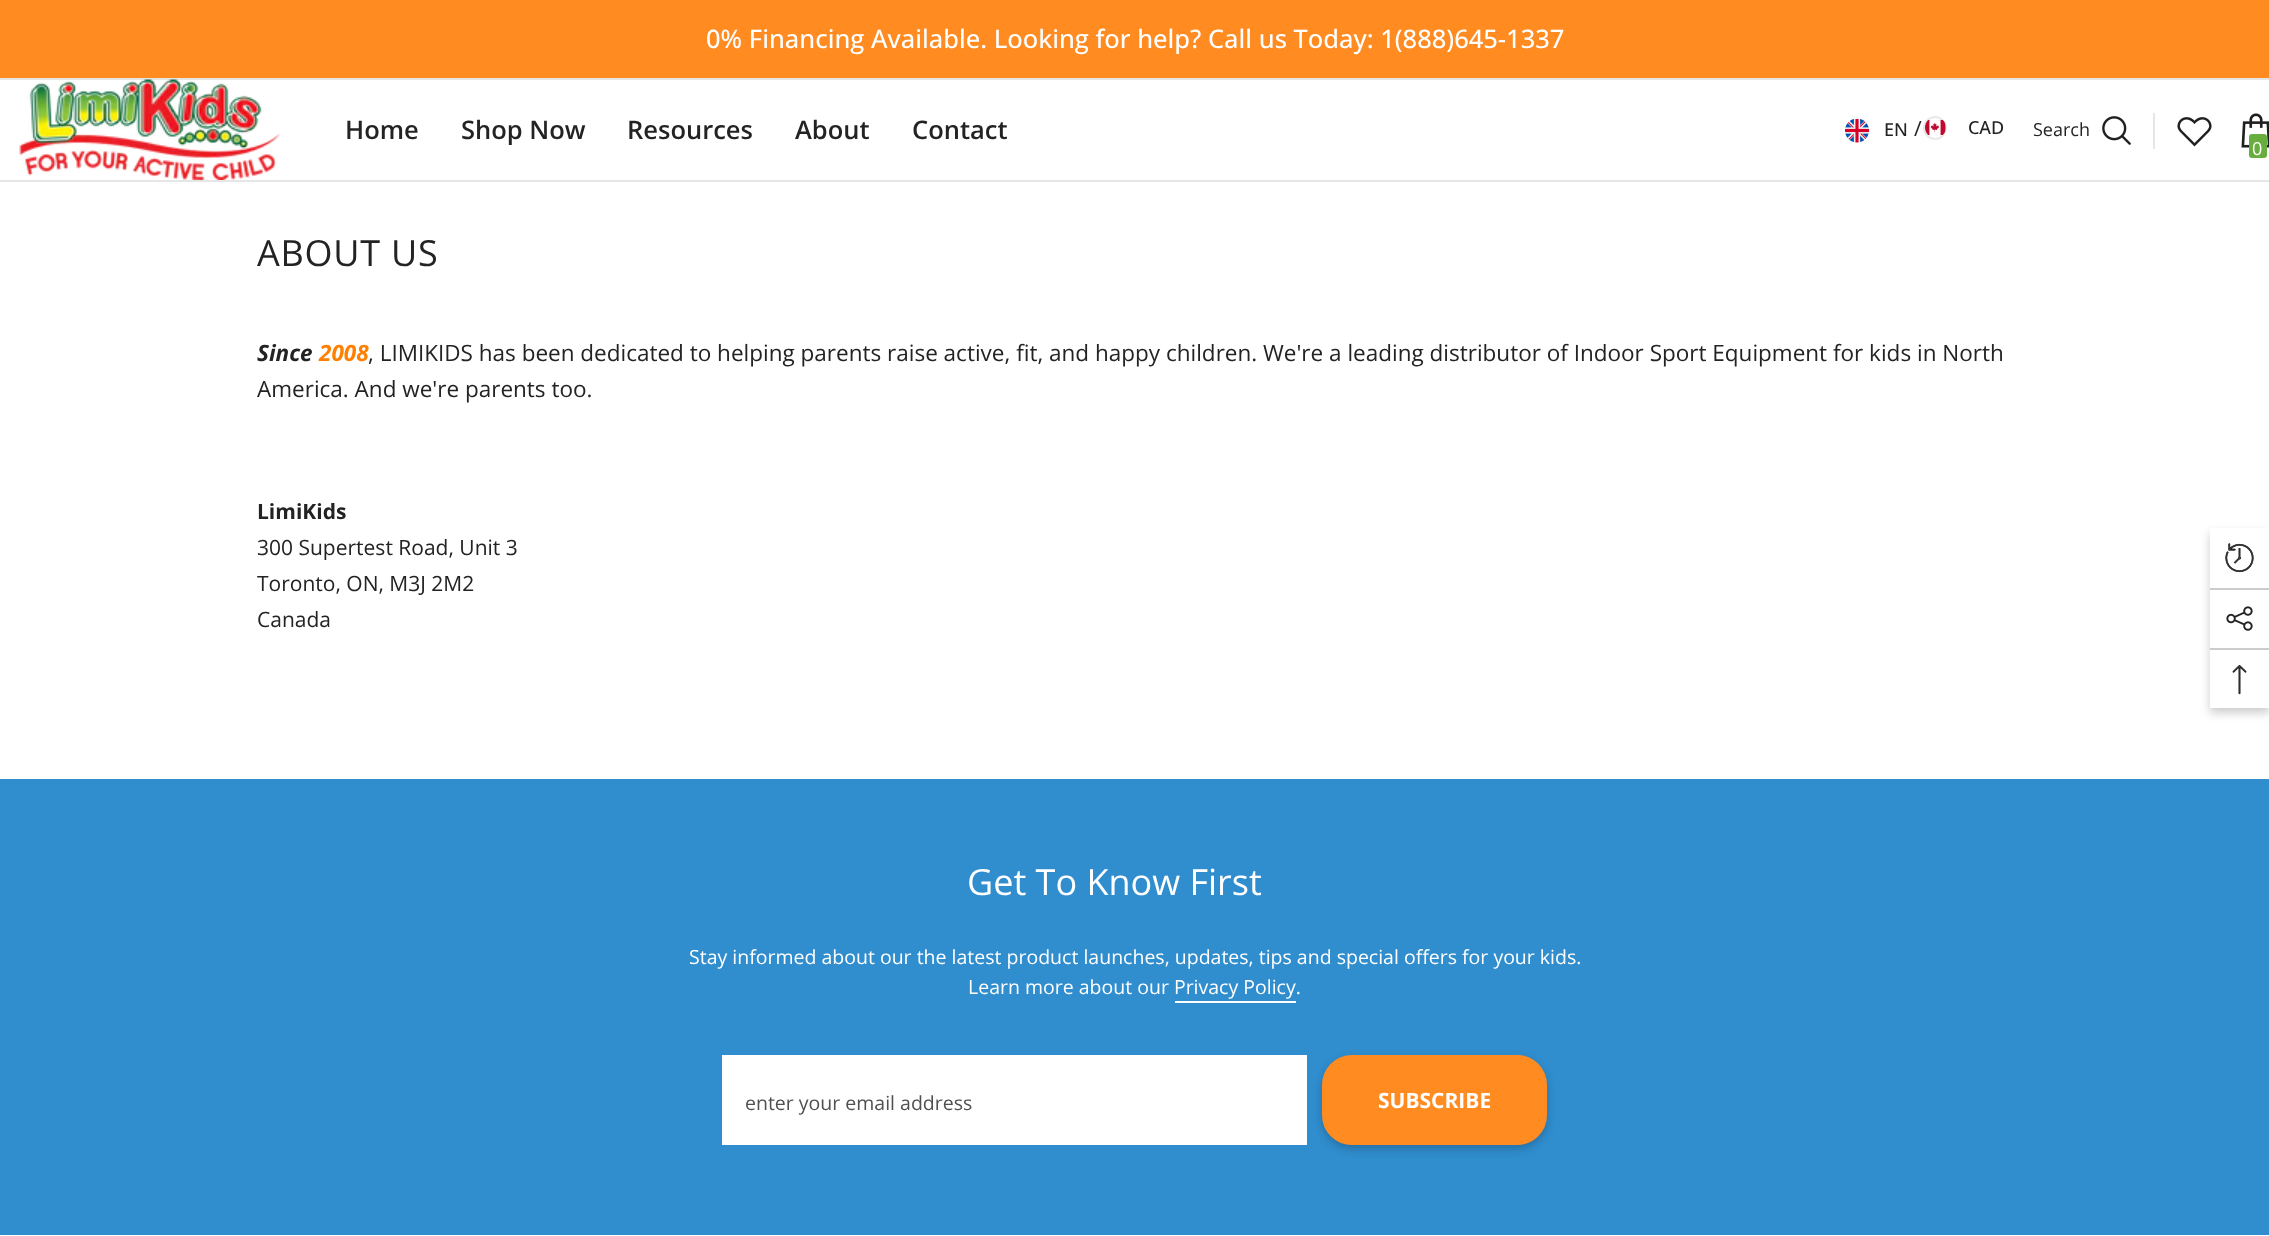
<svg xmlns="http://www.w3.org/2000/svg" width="2269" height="1236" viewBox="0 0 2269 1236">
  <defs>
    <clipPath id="clip1"><path d="M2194 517H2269V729H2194ZM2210 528H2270V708H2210Z" clip-rule="evenodd"/></clipPath>
  </defs>
  <rect width="100%" height="100%" fill="#fff"/>
  <path d="M0 0h2269v78H0z" fill="#ff8b21"/>
  <path d="M0 78h2269v2H0z" fill="#e6e6e6"/>
  <path d="M0 180h2269v2H0z" fill="#e6e6e6"/>
  <image x="19" y="79" width="262" height="101" href="img/1.png"/>
  <image x="1845" y="119" width="24" height="24" href="img/2.png"/>
  <circle cx="1935" cy="128" r="11" fill="none" stroke="#e9e9e9" stroke-width="2"/>
  <image x="1925" y="120" width="21" height="15" href="img/3.png"/>
  <image x="2102" y="116" width="29" height="29" href="img/4.png"/>
  <path d="M2153 113h2v36H2153z" fill="#e6e6e6"/>
  <image x="2177" y="117" width="35" height="30" href="img/5.png"/>
  <image x="2241" y="113" width="28" height="35" href="img/6.png"/>
  <rect x="2249" y="134" width="18" height="24" rx="3" fill="#68ad3e"/>
  <path d="M0 779h2269v456H0z" fill="#308dce"/>
  <path d="M1175 1001h121v2H1175z" fill="#fff"/>
  <path d="M722 1055h585v90H722z" fill="#fff"/>
  <rect x="1322" y="1059" width="225" height="90" rx="30" fill="#00000033" filter="blur(4px)"/>
  <rect x="1323" y="1056" width="223" height="88" rx="29" fill="#ff8b21" stroke="#ff8b21" stroke-width="2"/>
  <g clip-path="url(#clip1)">
    <path d="M2210 533h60v180H2210z" fill="#00000033" filter="blur(5px)"/>
  </g>
  <image x="2225" y="543" width="29" height="30" href="img/7.png"/>
  <path d="M2210 588h59v2H2210z" fill="#ccc"/>
  <image x="2226" y="606" width="27" height="25" href="img/8.png"/>
  <path d="M2210 648h59v2H2210z" fill="#ccc"/>
  <image x="2232" y="665" width="15" height="30" href="img/9.png"/>
  <text x="706" y="48" font-family="Open Sans" font-size="25.5" font-weight="500" fill="#fff">0% Financing Available. Looking for help? Call us Today: 1(888)645-1337</text>
  <g font-family="Open Sans" font-size="25.5" font-weight="600" fill="#232323">
    <text x="345" y="139">Home</text>
    <text x="461" y="139">Shop Now</text>
    <text x="627" y="139">Resources</text>
    <text x="795" y="139">About</text>
    <text x="912" y="139">Contact</text>
  </g>
  <text x="1884" y="136" font-family="Open Sans" font-size="18" font-weight="500" fill="#232323">EN</text>
  <text x="1914" y="136" font-family="Open Sans" font-size="21" fill="#232323">/</text>
  <text x="1968" y="134" font-family="Open Sans" font-size="18" font-weight="500" fill="#232323">CAD</text>
  <text x="2033" y="136" font-family="Open Sans" font-size="18" fill="#232323">Search</text>
  <text x="2252" y="155" font-family="Open Sans" font-size="18" fill="#fff">0</text>
  <text x="257" y="266" font-family="Open Sans" font-size="36" letter-spacing="0.75" fill="#232323">ABOUT US</text>
  <text x="257" y="361" font-family="Open Sans" font-size="22.5" font-weight="bold" font-style="italic" fill="#232323">Since</text>
  <text x="319" y="361" font-family="Open Sans" font-size="22.5" font-weight="bold" font-style="italic" fill="#ff8000">2008</text>
  <g font-family="Open Sans" font-size="22.5" fill="#232323">
    <text x="368" y="361">, LIMIKIDS has been dedicated to helping parents raise active, fit, and happy children. We're a leading distributor of Indoor Sport Equipment for kids in North</text>
    <text x="257" y="397">America. And we're parents too.</text>
  </g>
  <text x="257" y="519" font-family="Open Sans" font-size="21" font-weight="bold" fill="#232323">LimiKids</text>
  <g font-family="Open Sans" font-size="21" fill="#232323">
    <text x="257" y="555">300 Supertest Road, Unit 3</text>
    <text x="257" y="591">Toronto, ON, M3J 2M2</text>
    <text x="257" y="627">Canada</text>
  </g>
  <text x="967" y="895" font-family="Open Sans" font-size="36" fill="#fff">Get To Know First</text>
  <g font-family="Open Sans" font-size="19.5" fill="#fff">
    <text x="689" y="964">Stay informed about our the latest product launches, updates, tips and special offers for your kids.</text>
    <text x="968" y="994">Learn more about our Privacy Policy.</text>
  </g>
  <text x="745" y="1110" font-family="Open Sans" font-size="19.5" fill="#505050">enter your email address</text>
  <text x="1378" y="1108" font-family="Open Sans" font-size="21" font-weight="bold" fill="#fff">SUBSCRIBE</text>
</svg>
